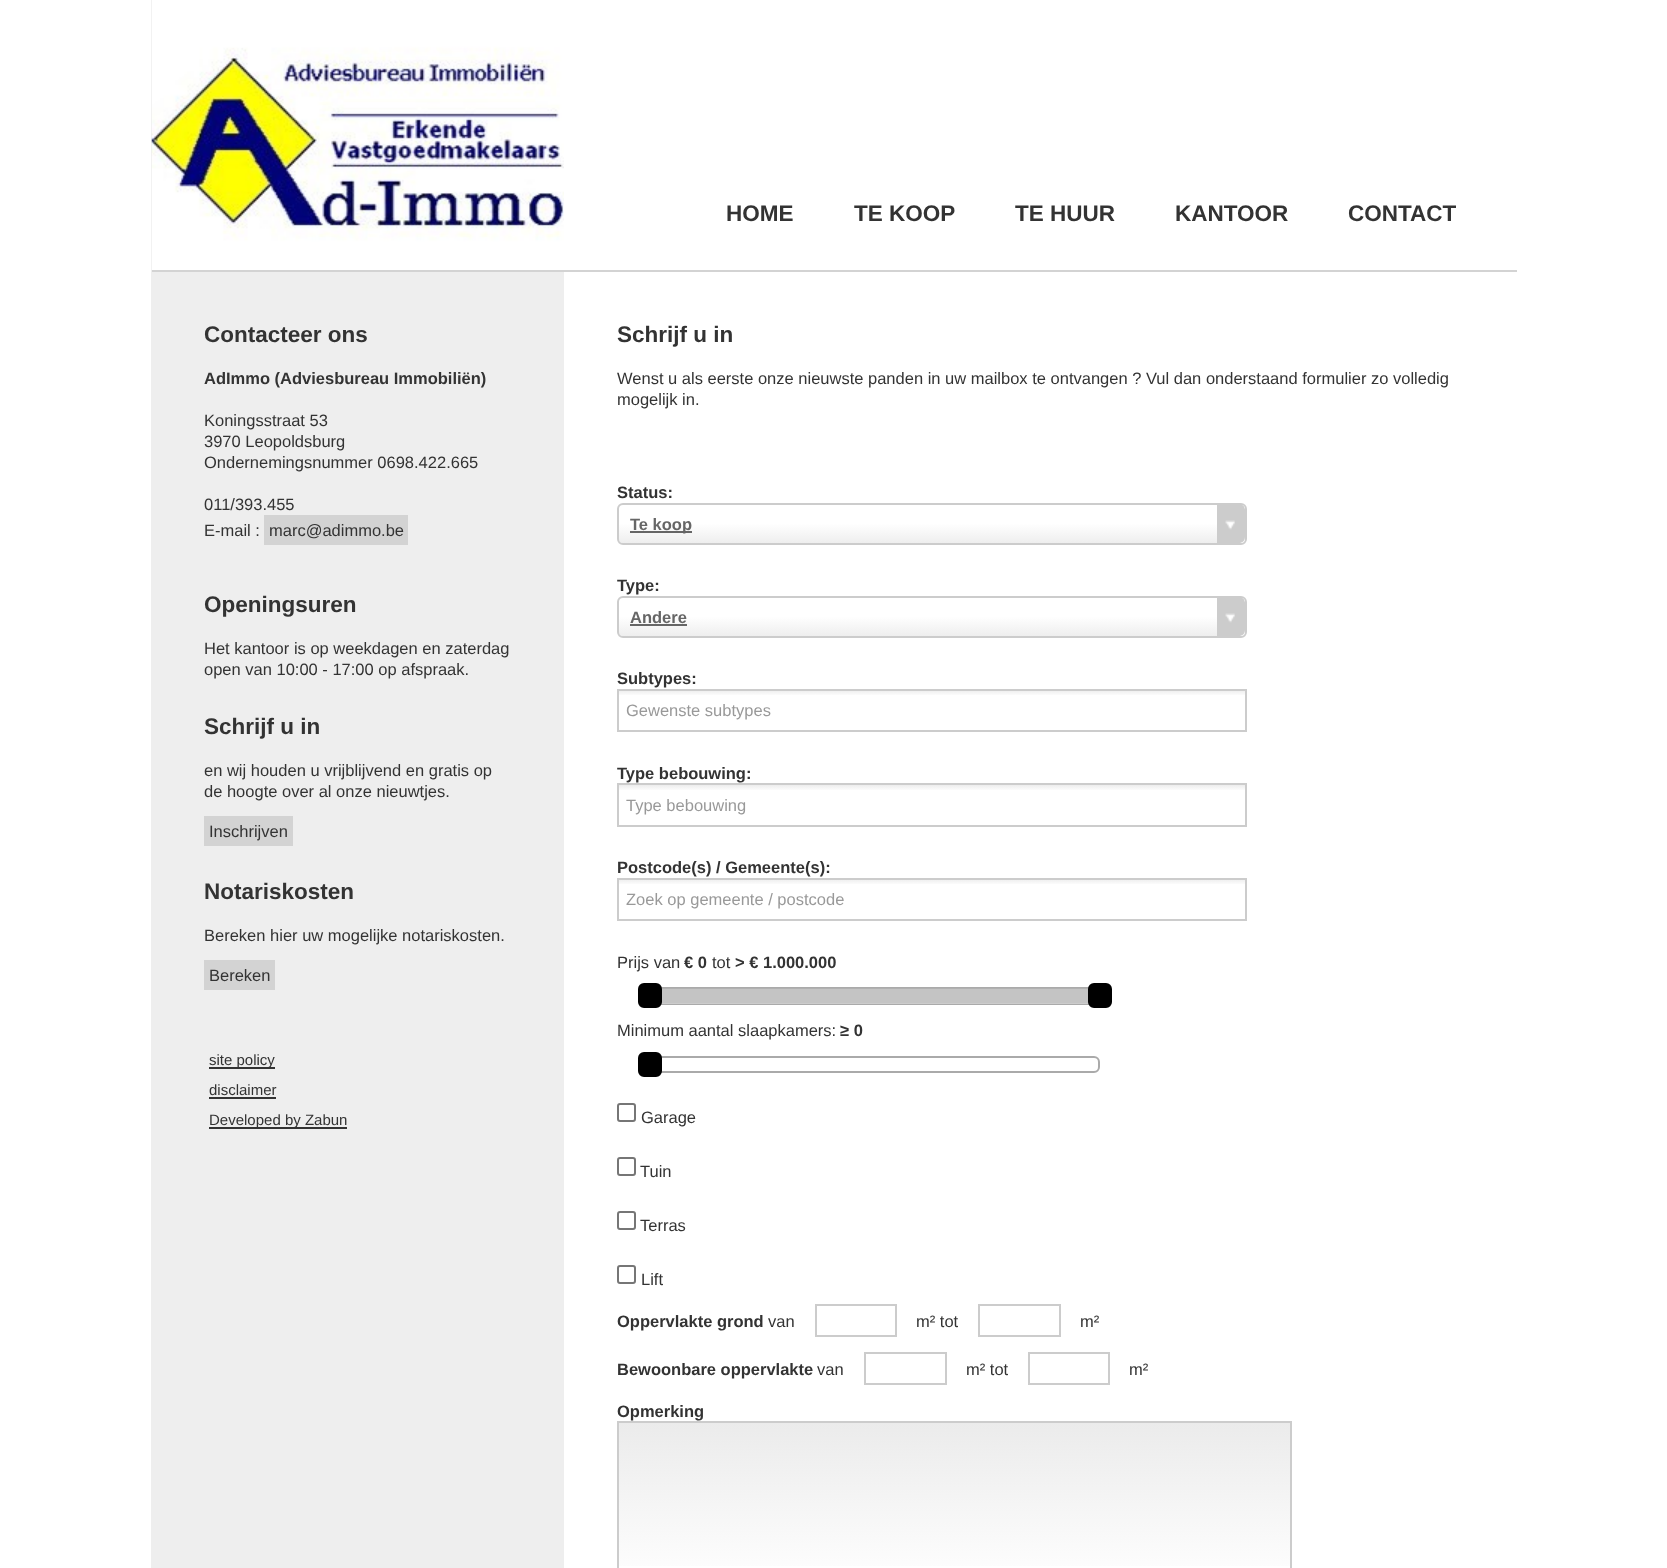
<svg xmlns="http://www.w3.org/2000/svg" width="1667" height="1568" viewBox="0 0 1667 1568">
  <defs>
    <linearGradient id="g1" gradientUnits="userSpaceOnUse" x1="618" y1="543" x2="618" y2="504"><stop offset="0" stop-color="#eee"/><stop offset="0.5" stop-color="#fff"/></linearGradient>
    <clipPath id="clip1"><rect x="618" y="504" width="627" height="39" rx="5"/></clipPath>
    <linearGradient id="g2" gradientUnits="userSpaceOnUse" x1="618" y1="636" x2="618" y2="597"><stop offset="0" stop-color="#eee"/><stop offset="0.5" stop-color="#fff"/></linearGradient>
    <clipPath id="clip2"><rect x="618" y="597" width="627" height="39" rx="5"/></clipPath>
    <linearGradient id="g3" gradientUnits="userSpaceOnUse" x1="932" y1="690" x2="932" y2="731"><stop offset="0.01" stop-color="#eee"/><stop offset="0.15" stop-color="#fff"/></linearGradient>
    <linearGradient id="g4" gradientUnits="userSpaceOnUse" x1="932" y1="785" x2="932" y2="825"><stop offset="0.01" stop-color="#eee"/><stop offset="0.15" stop-color="#fff"/></linearGradient>
    <linearGradient id="g5" gradientUnits="userSpaceOnUse" x1="932" y1="879" x2="932" y2="920"><stop offset="0.01" stop-color="#eee"/><stop offset="0.15" stop-color="#fff"/></linearGradient>
    <linearGradient id="g6" gradientUnits="userSpaceOnUse" x1="954" y1="1422" x2="954" y2="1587"><stop offset="0" stop-color="#ebebeb"/><stop offset="1" stop-color="#fff"/></linearGradient>
  </defs>
  <rect width="100%" height="100%" fill="#fff"/>
  <path d="M151 0h413v1568H151z" fill="#eee"/>
  <path d="M152 270h1365v2H152z" fill="#d3d3d3"/>
  <image x="151" y="0" width="413" height="270" href="img/1.png"/>
  <path d="M264 515h144v30H264z" fill="#d3d3d3"/>
  <path d="M204 816h89v30H204z" fill="#d3d3d3"/>
  <path d="M204 960h71v30H204z" fill="#d3d3d3"/>
  <path d="M209 1067h66v2H209z" fill="#333"/>
  <path d="M209 1097h67v2H209z" fill="#333"/>
  <path d="M209 1127h138v2H209z" fill="#333"/>
  <rect x="618" y="504" width="627" height="39" rx="5" fill="url(#g1)"/>
  <rect x="618" y="504" width="628" height="40" rx="5" fill="none" stroke="#ccc" stroke-width="2"/>
  <path d="M630 531h62v2H630z" fill="#666"/>
  <g clip-path="url(#clip1)">
    <path d="M1218 504H1239C1242.5 504 1245 506.5 1245 510V537C1245 540.5 1242.5 543 1239 543H1218Z" fill="#ccc"/>
  </g>
  <path d="M1217 504h1v39H1217z" fill="#ccc"/>
  <image x="1225" y="520" width="10" height="10" href="img/2.png"/>
  <rect x="618" y="597" width="627" height="39" rx="5" fill="url(#g2)"/>
  <rect x="618" y="597" width="628" height="40" rx="5" fill="none" stroke="#ccc" stroke-width="2"/>
  <path d="M630 624h57v2H630z" fill="#666"/>
  <g clip-path="url(#clip2)">
    <path d="M1218 597H1239C1242.5 597 1245 599.5 1245 603V630C1245 633.5 1242.5 636 1239 636H1218Z" fill="#ccc"/>
  </g>
  <path d="M1217 597h1v39H1217z" fill="#ccc"/>
  <image x="1225" y="613" width="10" height="10" href="img/2.png"/>
  <path d="M619 691h626v4H619z" fill="url(#g3)"/>
  <path d="M618 690h628v41H618z" fill="none" stroke="#ccc" stroke-width="2"/>
  <path d="M619 785h626v5H619z" fill="url(#g4)"/>
  <path d="M618 784h628v42H618z" fill="none" stroke="#ccc" stroke-width="2"/>
  <path d="M619 880h626v4H619z" fill="url(#g5)"/>
  <path d="M618 879h628v41H618z" fill="none" stroke="#ccc" stroke-width="2"/>
  <path d="M648 988h451v16H648z" fill="none" stroke="#aaa" stroke-width="2"/>
  <path d="M661 1003h428v1H661z" fill="#ccc"/>
  <image x="661" y="988" width="428" height="15" href="img/3.png"/>
  <rect x="639" y="984" width="22" height="23" rx="5" fill="#000" stroke="#000" stroke-width="2"/>
  <rect x="1089" y="984" width="22" height="23" rx="5" fill="#000" stroke="#000" stroke-width="2"/>
  <rect x="648" y="1057" width="451" height="15" rx="5" fill="none" stroke="#aaa" stroke-width="2"/>
  <rect x="639" y="1053" width="22" height="23" rx="5" fill="#000" stroke="#000" stroke-width="2"/>
  <rect x="618" y="1104" width="17" height="17" rx="2" fill="none" stroke="#767676" stroke-width="2"/>
  <rect x="618" y="1158" width="17" height="17" rx="2" fill="none" stroke="#767676" stroke-width="2"/>
  <rect x="618" y="1212" width="17" height="17" rx="2" fill="none" stroke="#767676" stroke-width="2"/>
  <rect x="618" y="1266" width="17" height="17" rx="2" fill="none" stroke="#767676" stroke-width="2"/>
  <path d="M816 1305h80v31H816z" fill="none" stroke="#ccc" stroke-width="2"/>
  <path d="M979 1305h81v31H979z" fill="none" stroke="#ccc" stroke-width="2"/>
  <path d="M865 1353h81v31H865z" fill="none" stroke="#ccc" stroke-width="2"/>
  <path d="M1029 1353h80v31H1029z" fill="none" stroke="#ccc" stroke-width="2"/>
  <path d="M619 1423h671v143H619z" fill="url(#g6)"/>
  <path d="M618 1422h673v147H618z" fill="none" stroke="#ccc" stroke-width="2"/>
  <g font-family="Liberation Sans" font-size="22.5" font-weight="bold" fill="#333">
    <text x="726" y="221">HOME</text>
    <text x="854" y="221">TE KOOP</text>
    <text x="1015" y="221">TE HUUR</text>
    <text x="1175" y="221">KANTOOR</text>
    <text x="1348" y="221">CONTACT</text>
    <text x="204" y="342">Contacteer ons</text>
  </g>
  <text x="204" y="384" font-family="Liberation Sans" font-size="16.5" font-weight="bold" fill="#333">AdImmo (Adviesbureau Immobiliën)</text>
  <g font-family="Liberation Sans" font-size="16.5" fill="#333">
    <text x="204" y="426">Koningsstraat 53</text>
    <text x="204" y="447">3970 Leopoldsburg</text>
    <text x="204" y="468">Ondernemingsnummer 0698.422.665</text>
    <text x="204" y="510">011/393.455</text>
    <text x="204" y="536">E-mail :</text>
    <text x="269" y="536">marc@adimmo.be</text>
  </g>
  <text x="204" y="612" font-family="Liberation Sans" font-size="22.5" font-weight="bold" fill="#333">Openingsuren</text>
  <g font-family="Liberation Sans" font-size="16.5" fill="#333">
    <text x="204" y="654">Het kantoor is op weekdagen en zaterdag</text>
    <text x="204" y="675">open van 10:00 - 17:00 op afspraak.</text>
  </g>
  <text x="204" y="734" font-family="Liberation Sans" font-size="22.5" font-weight="bold" fill="#333">Schrijf u in</text>
  <g font-family="Liberation Sans" font-size="16.5" fill="#333">
    <text x="204" y="776">en wij houden u vrijblijvend en gratis op</text>
    <text x="204" y="797">de hoogte over al onze nieuwtjes.</text>
    <text x="209" y="837">Inschrijven</text>
  </g>
  <text x="204" y="899" font-family="Liberation Sans" font-size="22.5" font-weight="bold" fill="#333">Notariskosten</text>
  <g font-family="Liberation Sans" font-size="16.5" fill="#333">
    <text x="204" y="941">Bereken hier uw mogelijke notariskosten.</text>
    <text x="209" y="981">Bereken</text>
  </g>
  <g font-family="Liberation Sans" font-size="15" fill="#333">
    <text x="209" y="1065">site policy</text>
    <text x="209" y="1095">disclaimer</text>
    <text x="209" y="1125">Developed by Zabun</text>
  </g>
  <text x="617" y="342" font-family="Liberation Sans" font-size="22.5" font-weight="bold" fill="#333">Schrijf u in</text>
  <g font-family="Liberation Sans" font-size="16.5" fill="#333">
    <text x="617" y="384">Wenst u als eerste onze nieuwste panden in uw mailbox te ontvangen ? Vul dan onderstaand formulier zo volledig</text>
    <text x="617" y="405">mogelijk in.</text>
  </g>
  <text x="617" y="498" font-family="Liberation Sans" font-size="16.5" font-weight="bold" fill="#333">Status:</text>
  <text x="630" y="530" font-family="Liberation Sans" font-size="16.5" font-weight="bold" fill="#666">Te koop</text>
  <text x="617" y="591" font-family="Liberation Sans" font-size="16.5" font-weight="bold" fill="#333">Type:</text>
  <text x="630" y="623" font-family="Liberation Sans" font-size="16.5" font-weight="bold" fill="#666">Andere</text>
  <text x="617" y="684" font-family="Liberation Sans" font-size="16.5" font-weight="bold" fill="#333">Subtypes:</text>
  <text x="626" y="716" font-family="Liberation Sans" font-size="16.5" fill="#999">Gewenste subtypes</text>
  <text x="617" y="779" font-family="Liberation Sans" font-size="16.5" font-weight="bold" fill="#333">Type bebouwing:</text>
  <text x="626" y="811" font-family="Liberation Sans" font-size="16.5" fill="#999">Type bebouwing</text>
  <text x="617" y="873" font-family="Liberation Sans" font-size="16.5" font-weight="bold" fill="#333">Postcode(s) / Gemeente(s):</text>
  <text x="626" y="905" font-family="Liberation Sans" font-size="16.5" fill="#999">Zoek op gemeente / postcode</text>
  <text x="617" y="968" font-family="Liberation Sans" font-size="16.5" fill="#333">Prijs van</text>
  <text x="684" y="968" font-family="Liberation Sans" font-size="16.5" font-weight="bold" fill="#333">€ 0</text>
  <text x="712" y="968" font-family="Liberation Sans" font-size="16.5" fill="#333">tot</text>
  <text x="735" y="968" font-family="Liberation Sans" font-size="16.5" font-weight="bold" fill="#333">&gt; € 1.000.000</text>
  <text x="617" y="1036" font-family="Liberation Sans" font-size="16.5" fill="#333">Minimum aantal slaapkamers:</text>
  <text x="840" y="1036" font-family="Liberation Sans" font-size="16.5" font-weight="bold" fill="#333">≥ 0</text>
  <g font-family="Liberation Sans" font-size="16.5" fill="#333">
    <text x="641" y="1123">Garage</text>
    <text x="640" y="1177">Tuin</text>
    <text x="640" y="1231">Terras</text>
    <text x="641" y="1285">Lift</text>
  </g>
  <text x="617" y="1327" font-family="Liberation Sans" font-size="16.5" font-weight="bold" fill="#333">Oppervlakte grond</text>
  <g font-family="Liberation Sans" font-size="16.5" fill="#333">
    <text x="768" y="1327">van</text>
    <text x="916" y="1327">m² tot</text>
    <text x="1080" y="1327">m²</text>
  </g>
  <text x="617" y="1375" font-family="Liberation Sans" font-size="16.5" font-weight="bold" fill="#333">Bewoonbare oppervlakte</text>
  <g font-family="Liberation Sans" font-size="16.5" fill="#333">
    <text x="817" y="1375">van</text>
    <text x="966" y="1375">m² tot</text>
    <text x="1129" y="1375">m²</text>
  </g>
  <text x="617" y="1417" font-family="Liberation Sans" font-size="16.5" font-weight="bold" fill="#333">Opmerking</text>
</svg>
